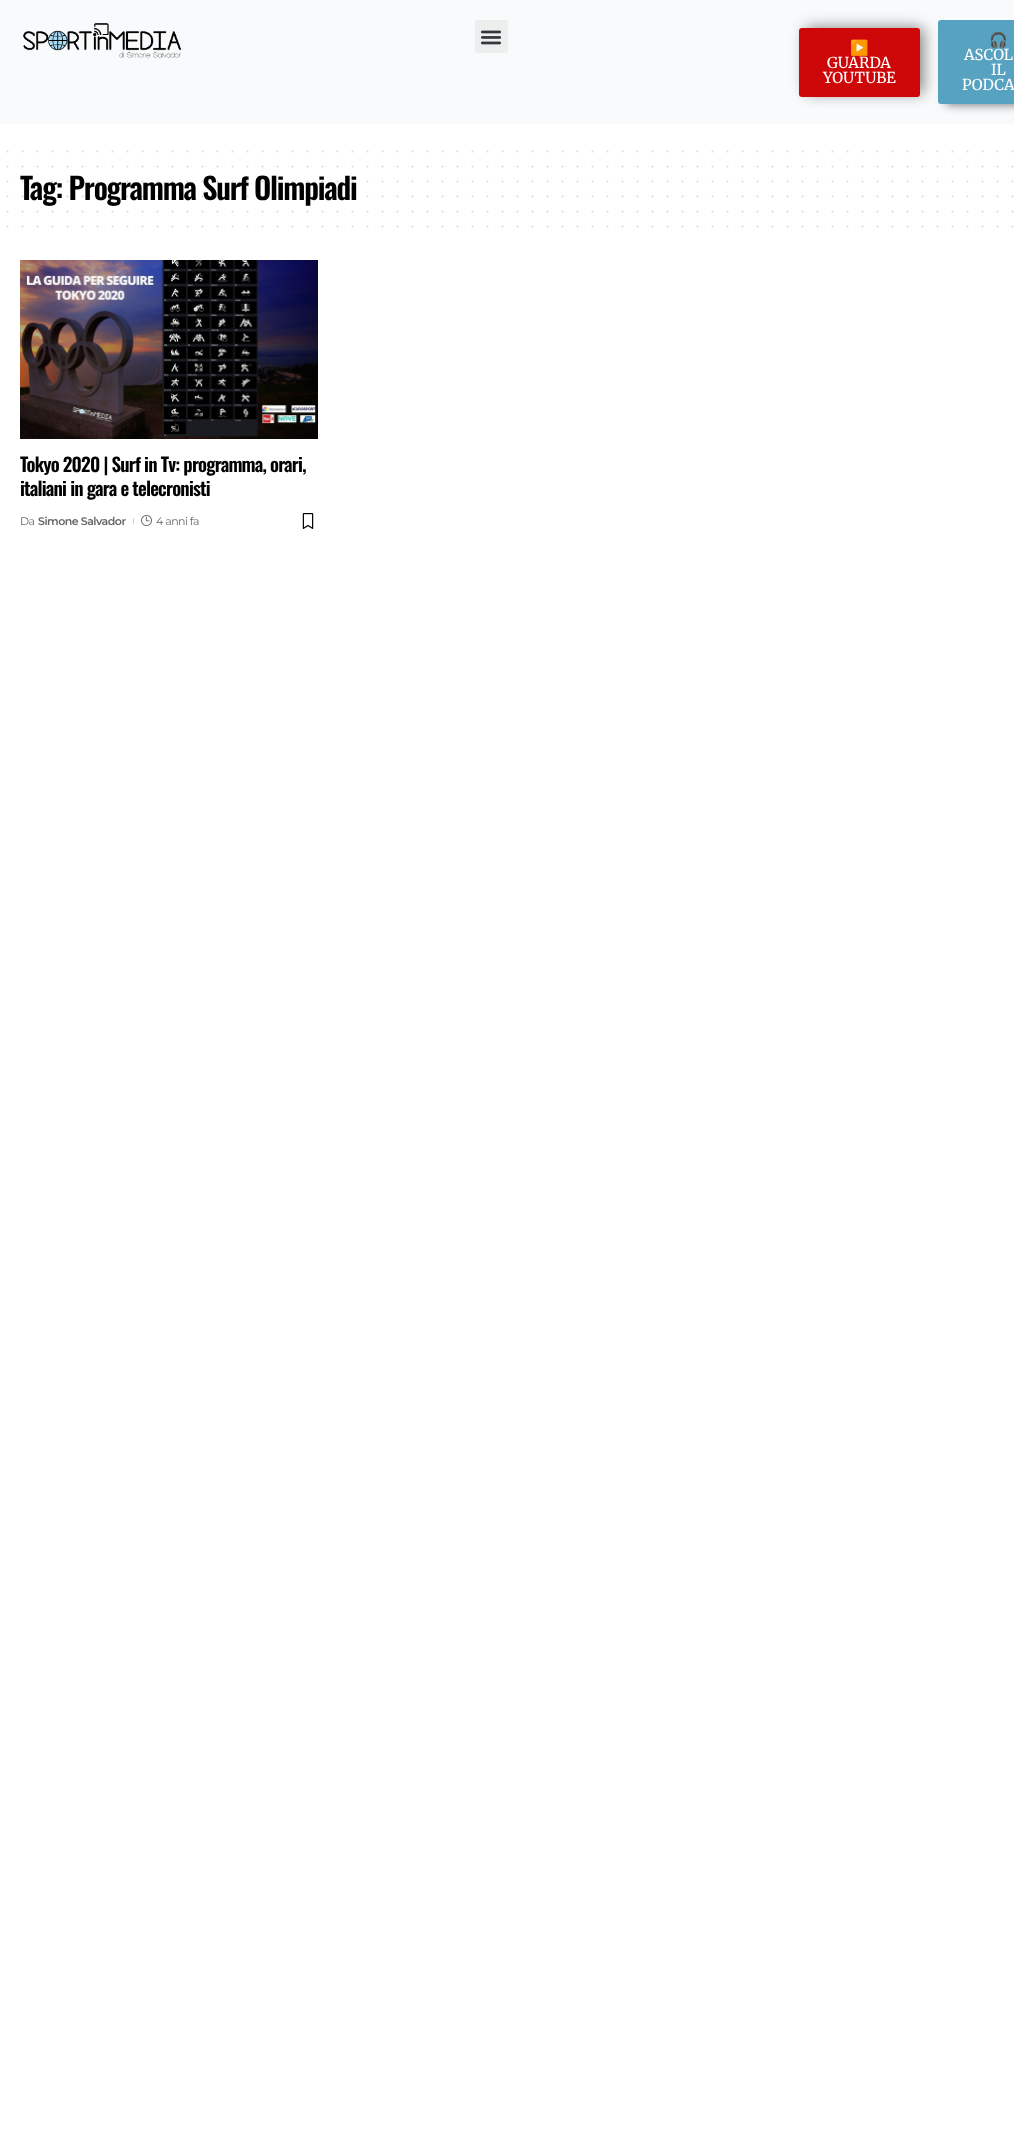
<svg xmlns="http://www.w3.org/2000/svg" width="1014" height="2135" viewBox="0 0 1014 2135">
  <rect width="100%" height="100%" fill="#fff"/>
  <path d="M0 0h1014v124H0z" fill="#f9fafb"/>
  <image x="23" y="23" width="158" height="35" href="img/1.png"/>
  <rect x="475" y="20" width="33" height="33" rx="3" fill="#edeeee"/>
  <image x="480" y="30" width="22" height="15" href="img/2.png"/>
  <path d="M799 28h119v69H799z" fill="#f4f4f4"/>
  <rect x="806" y="28" width="117" height="65" rx="1" fill="#00000080" filter="blur(7.5px)"/>
  <rect x="799" y="28" width="121" height="69" rx="3" fill="#ce0808"/>
  <path d="M946 31h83v74H946z" fill="#00000080" filter="blur(5px)"/>
  <rect x="938" y="20" width="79" height="84" rx="3" fill="#58a2c1"/>
  <path d="M7.5 151.5H1012.7" fill="none" stroke="#d9d9d9" stroke-width="2" stroke-linecap="round" stroke-dasharray="0 15"/>
  <path d="M7.5 166.5H1012.7" fill="none" stroke="#d9d9d9" stroke-width="2" stroke-linecap="round" stroke-dasharray="0 15"/>
  <path d="M7.5 211.5H1012.7" fill="none" stroke="#d9d9d9" stroke-width="2" stroke-linecap="round" stroke-dasharray="0 15"/>
  <path d="M7.5 226.5H1012.7" fill="none" stroke="#d9d9d9" stroke-width="2" stroke-linecap="round" stroke-dasharray="0 15"/>
  <image x="20" y="260" width="298" height="179" href="img/3.png"/>
  <path d="M133 518h1v6H133z" fill="#d1d1d1"/>
  <image x="141" y="515" width="11" height="11" href="img/4.png"/>
  <image x="302" y="513" width="12" height="16" href="img/5.png"/>
  <text x="850" y="53" font-family="Noto Color Emoji" font-size="15" fill="#fff">▶️</text>
  <g font-family="Merriweather" font-size="15" fill="#fff">
    <text x="827" y="68">GUARDA</text>
    <text x="823" y="83">YOUTUBE</text>
  </g>
  <text x="989" y="45" font-family="Noto Color Emoji" font-size="15" fill="#fff">🎧</text>
  <g font-family="Merriweather" font-size="15" fill="#fff">
    <text x="964" y="60">ASCOL</text>
    <text x="991" y="75">IL</text>
    <text x="962" y="90">PODCA</text>
  </g>
  <text x="20" y="200" font-family="Oswald" font-size="30" font-weight="600" letter-spacing="-1.2" fill="#000">Tag: Programma Surf Olimpiadi</text>
  <path d="M7.5 196.5H1012.7" fill="none" stroke="#00000026" stroke-width="2" stroke-linecap="round" stroke-dasharray="0 15"/>
  <path d="M7.5 181.5H1012.7" fill="none" stroke="#00000026" stroke-width="2" stroke-linecap="round" stroke-dasharray="0 15"/>
  <g font-family="Oswald" font-size="19" font-weight="600" letter-spacing="-0.8" fill="#000">
    <text x="20" y="472">Tokyo 2020 | Surf in Tv: programma, orari,</text>
    <text x="20" y="496">italiani in gara e telecronisti</text>
  </g>
  <text x="20" y="525" font-family="Montserrat" font-size="11" letter-spacing="-0.5" fill="#666">Da</text>
  <text x="38" y="525" font-family="Montserrat" font-size="11" font-weight="600" letter-spacing="-0.5" fill="#666">Simone Salvador</text>
  <text x="156" y="525" font-family="Montserrat" font-size="11" letter-spacing="-0.5" fill="#666">4 anni fa</text>
</svg>
